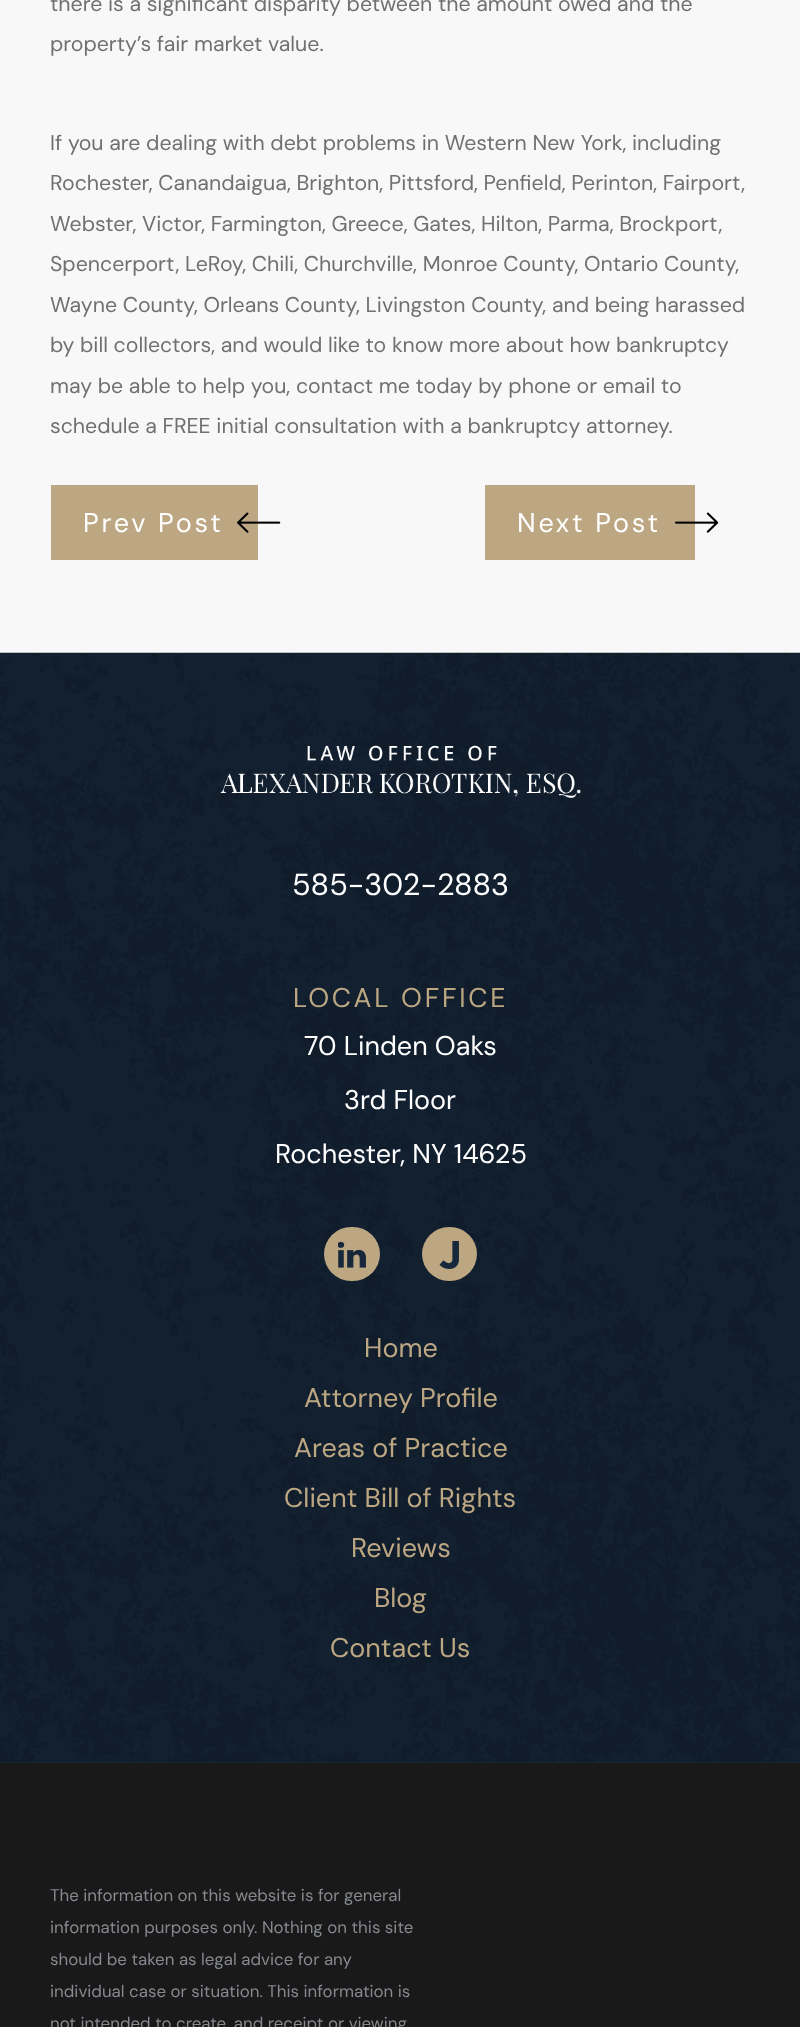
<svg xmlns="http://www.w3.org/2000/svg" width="800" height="2027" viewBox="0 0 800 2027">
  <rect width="100%" height="100%" fill="#f8f8f8"/>
  <path d="M51 485h207v75H51z" fill="#bca782"/>
  <image x="237" y="512" width="44" height="21" href="img/1.png"/>
  <path d="M485 485h210v75H485z" fill="#bca782"/>
  <image x="675" y="512" width="44" height="21" href="img/2.png"/>
  <path d="M0 1762h800v1H0z" fill="#17283c"/>
  <image x="0" y="652" width="800" height="1111" href="img/3.png"/>
  <image x="220" y="745" width="361" height="53" href="img/4.png"/>
  <rect x="324" y="1227" width="56" height="54" rx="27" fill="#bca782"/>
  <image x="338" y="1241" width="28" height="27" href="img/5.png"/>
  <rect x="422" y="1227" width="55" height="54" rx="27" fill="#bca782"/>
  <image x="439" y="1241" width="20" height="28" href="img/6.png"/>
  <path d="M0 1763h800v264H0z" fill="#191919"/>
  <g font-family="DM Sans" font-size="21.3" fill="#707070">
    <text x="50" y="11">there is a significant disparity between the amount owed and the</text>
    <text x="50" y="51">property’s fair market value.</text>
    <text x="50" y="150">If you are dealing with debt problems in Western New York, including</text>
    <text x="50" y="190">Rochester, Canandaigua, Brighton, Pittsford, Penfield, Perinton, Fairport,</text>
    <text x="50" y="231">Webster, Victor, Farmington, Greece, Gates, Hilton, Parma, Brockport,</text>
    <text x="50" y="271">Spencerport, LeRoy, Chili, Churchville, Monroe County, Ontario County,</text>
    <text x="50" y="312">Wayne County, Orleans County, Livingston County, and being harassed</text>
    <text x="50" y="352">by bill collectors, and would like to know more about how bankruptcy</text>
    <text x="50" y="393">may be able to help you, contact me today by phone or email to</text>
    <text x="50" y="433">schedule a FREE initial consultation with a bankruptcy attorney.</text>
  </g>
  <g font-family="DM Sans" font-size="27" letter-spacing="2.75" fill="#fff">
    <text x="83" y="532">Prev Post</text>
    <text x="517" y="532">Next Post</text>
  </g>
  <text x="292" y="895" font-family="DM Sans" font-size="30.5" fill="#fff">585-302-2883</text>
  <text x="293" y="1007" font-family="DM Sans" font-size="27" letter-spacing="2.75" fill="#bca782">LOCAL OFFICE</text>
  <g font-family="DM Sans" font-size="27" fill="#fff">
    <text x="304" y="1055">70 Linden Oaks</text>
    <text x="344" y="1109">3rd Floor</text>
    <text x="275" y="1163">Rochester, NY 14625</text>
  </g>
  <g font-family="DM Sans" font-size="27" fill="#bca782">
    <text x="364" y="1357">Home</text>
    <text x="304" y="1407">Attorney Profile</text>
    <text x="294" y="1457">Areas of Practice</text>
    <text x="284" y="1507">Client Bill of Rights</text>
    <text x="351" y="1557">Reviews</text>
    <text x="374" y="1607">Blog</text>
    <text x="330" y="1657">Contact Us</text>
  </g>
  <g font-family="DM Sans" font-size="16.9" fill="#86898f">
    <text x="50" y="1901">The information on this website is for general</text>
    <text x="50" y="1933">information purposes only. Nothing on this site</text>
    <text x="50" y="1965">should be taken as legal advice for any</text>
    <text x="50" y="1997">individual case or situation. This information is</text>
    <text x="50" y="2029">not intended to create, and receipt or viewing</text>
  </g>
</svg>
